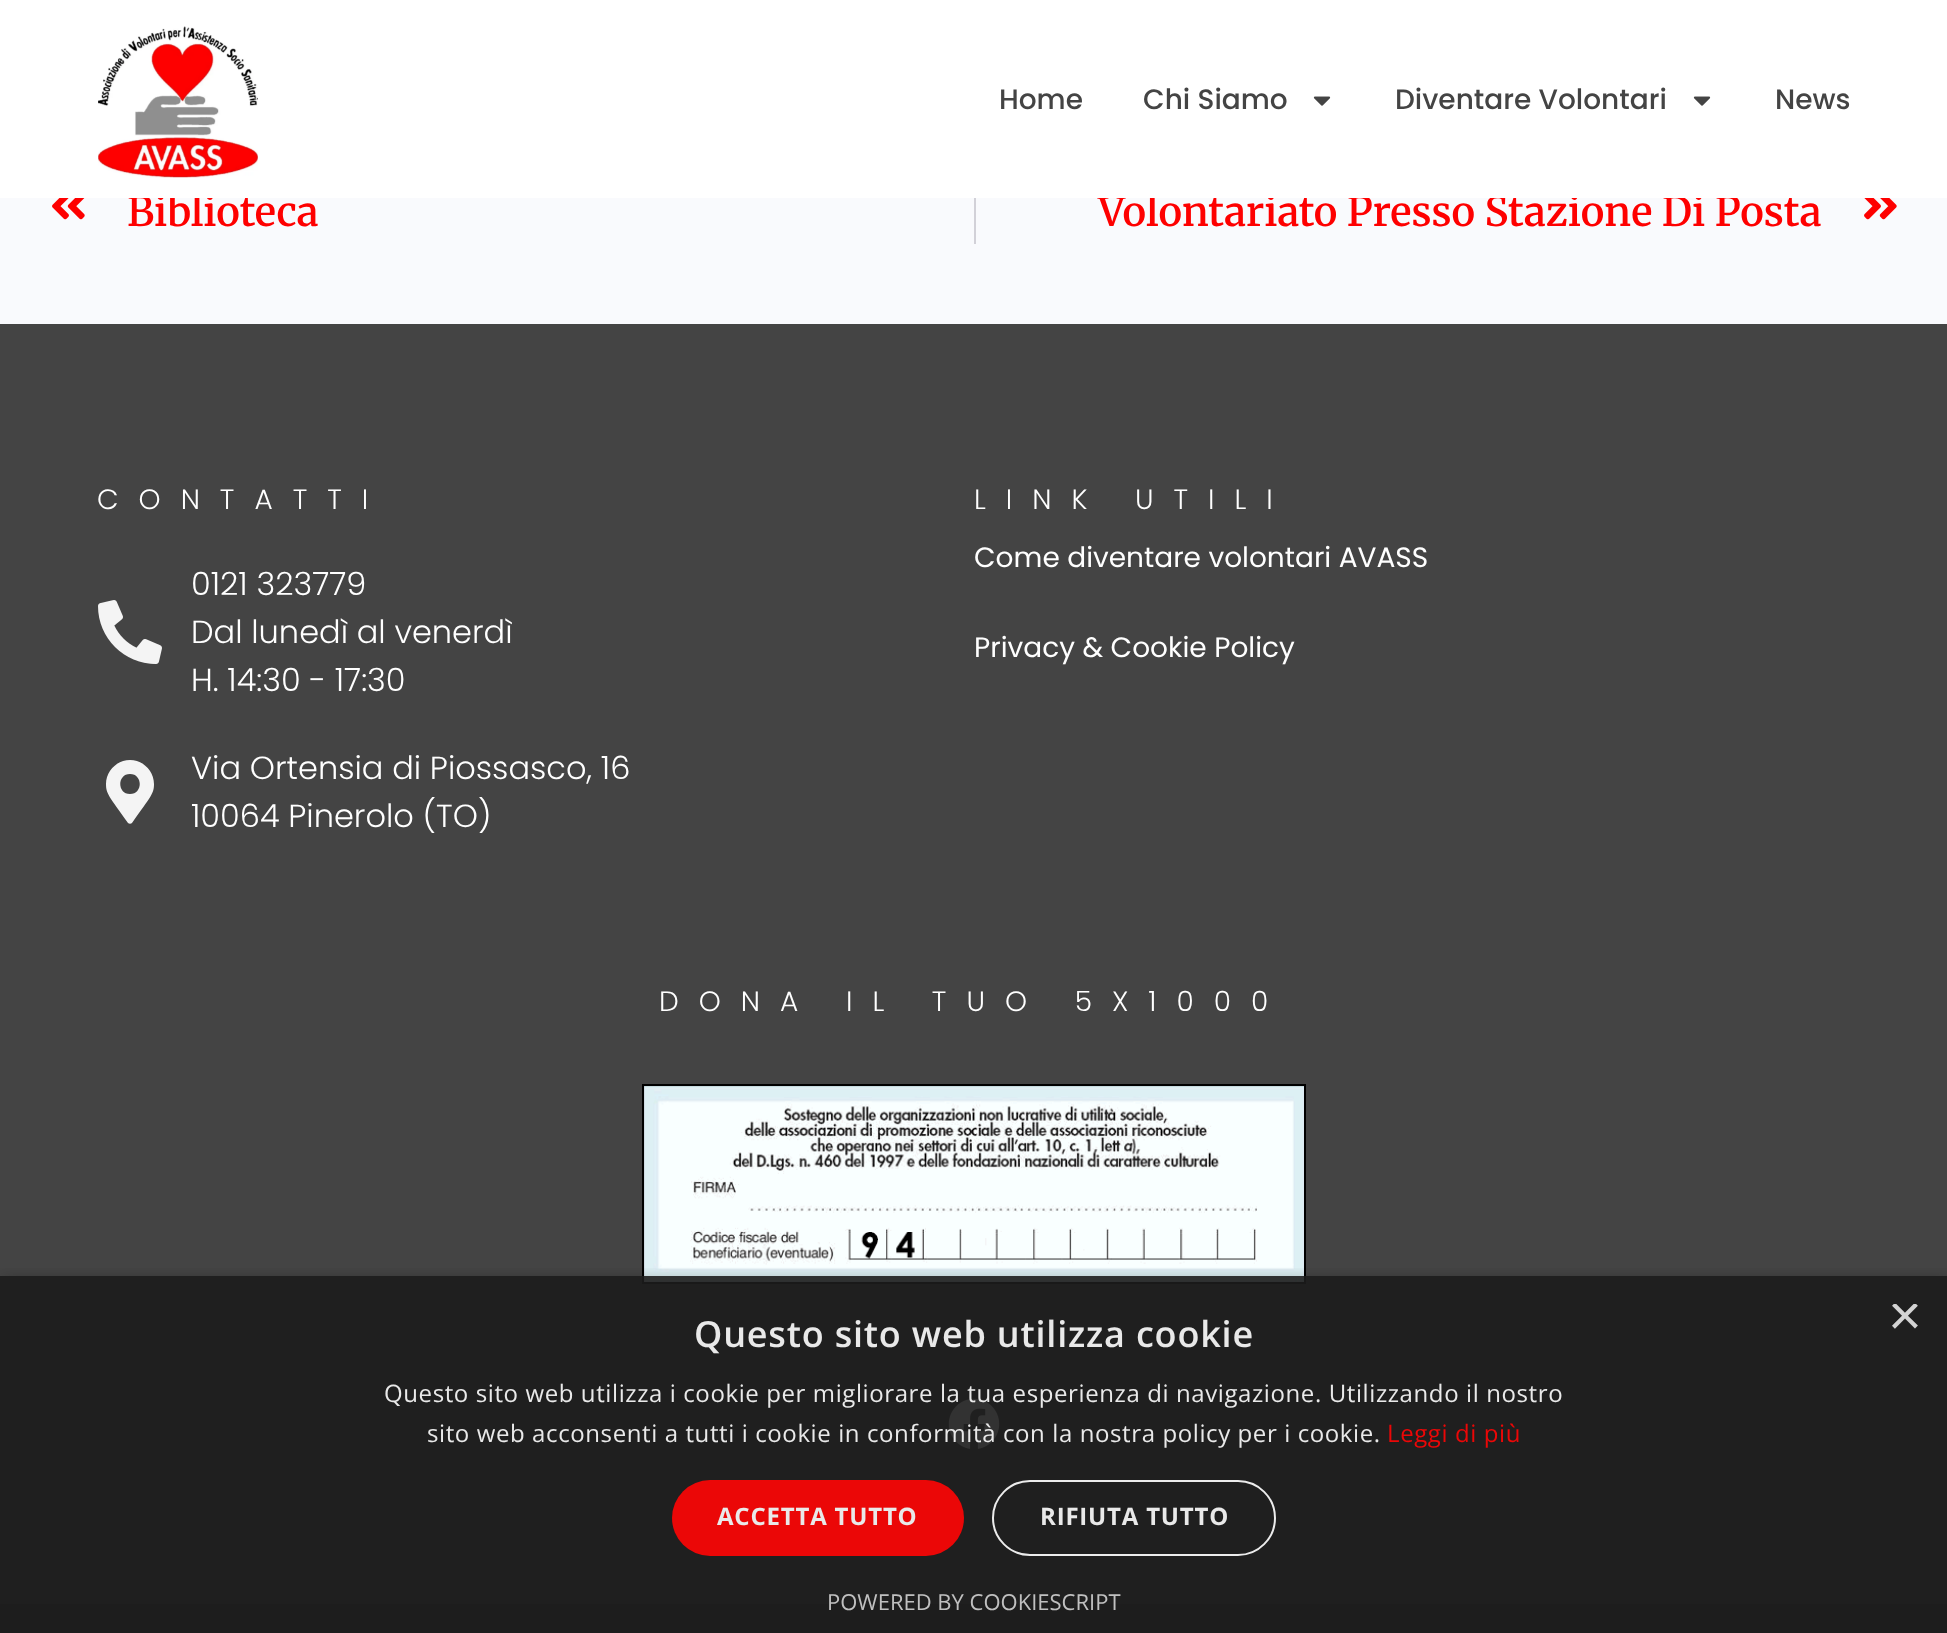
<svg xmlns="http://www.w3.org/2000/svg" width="1947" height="1633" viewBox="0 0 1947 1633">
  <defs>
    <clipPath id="clip1"><path d="M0 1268h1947v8H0z"/></clipPath>
    <clipPath id="clip2"><path d="M1888 1304h30v30H1888z"/></clipPath>
  </defs>
  <rect width="100%" height="100%" fill="#f9fafd"/>
  <image x="52" y="198" width="33" height="22" href="img/3.png"/>
  <path d="M974 198h2v46H974z" fill="#d2d1d8"/>
  <image x="1864" y="198" width="33" height="22" href="img/4.png"/>
  <path d="M0 324h1947v1280H0z" fill="#444"/>
  <image x="98" y="600" width="64" height="64" href="img/5.png"/>
  <path d="M128 823C109 796 106 794 106 784C106 771 117 760 130 760C143 760 154 771 154 784C154 794 151 796 132 823C131 824 129 824 128 823ZM130 794C143 794 143 774 130 774C117 774 117 794 130 794Z" fill="#f4f4f4"/>
  <image x="642" y="1084" width="664" height="200" href="img/6.png"/>
  <image x="948" y="1398" width="52" height="51" href="img/7.png"/>
  <path d="M0 1604h1947v29H0z" fill="#2a2a2a"/>
  <g clip-path="url(#clip1)">
    <path d="M2 1280h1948v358H2z" fill="#00000052" filter="blur(8px)"/>
  </g>
  <path d="M0 1276h1947v357H0z" fill="#1c1c1ce6"/>
  <rect x="672" y="1480" width="292" height="76" rx="38" fill="#eb0707"/>
  <rect x="993" y="1481" width="282" height="74" rx="37" fill="none" stroke="#ececec" stroke-width="2"/>
  <g font-family="Merriweather" font-size="40" font-weight="600" fill="#fe0000">
    <text x="127" y="226">Biblioteca</text>
    <text x="1098" y="226">Volontariato Presso Stazione Di Posta</text>
  </g>
  <path d="M0 0h1947v198H0z" fill="#fff"/>
  <text x="1775" y="109" font-family="Poppins" font-size="28" font-weight="500" fill="#444">News</text>
  <image x="1693" y="96" width="18" height="10" href="img/2.png"/>
  <text x="1395" y="109" font-family="Poppins" font-size="28" font-weight="500" fill="#444">Diventare Volontari</text>
  <image x="1313" y="96" width="18" height="10" href="img/2.png"/>
  <g font-family="Poppins" font-size="28" font-weight="500" fill="#444">
    <text x="1143" y="109">Chi Siamo</text>
    <text x="999" y="109">Home</text>
  </g>
  <image x="98" y="26" width="160" height="152" href="img/1.png"/>
  <text x="97" y="509" font-family="Poppins" font-size="28" font-weight="300" letter-spacing="20" fill="#fff">CONTATTI</text>
  <g font-family="Poppins" font-size="32" font-weight="300" fill="#fff">
    <text x="191" y="595">0121 323779</text>
    <text x="191" y="643">Dal lunedì al venerdì</text>
    <text x="191" y="691">H. 14:30 - 17:30</text>
    <text x="191" y="779">Via Ortensia di Piossasco, 16</text>
    <text x="191" y="827">10064 Pinerolo (TO)</text>
  </g>
  <text x="974" y="509" font-family="Poppins" font-size="28" font-weight="300" letter-spacing="20" fill="#fff">LINK UTILI</text>
  <g font-family="Poppins" font-size="28" fill="#fff">
    <text x="974" y="567">Come diventare volontari AVASS</text>
    <text x="974" y="657">Privacy &amp; Cookie Policy</text>
  </g>
  <text x="659" y="1011" font-family="Poppins" font-size="28" font-weight="300" letter-spacing="20" fill="#fff">DONA IL TUO 5X1000</text>
  <g clip-path="url(#clip2)">
    <text x="1888" y="1335" font-family="Liberation Sans" font-size="58" fill="#d3d3d3">×</text>
  </g>
  <text x="694" y="1347" font-family="Open Sans" font-size="36" font-weight="600" letter-spacing="0.8" fill="#e9e9e9">Questo sito web utilizza cookie</text>
  <g font-family="Open Sans" font-size="24" letter-spacing="0.6" fill="#e9e9e9">
    <text x="384" y="1402">Questo sito web utilizza i cookie per migliorare la tua esperienza di navigazione. Utilizzando il nostro</text>
    <text x="427" y="1442">sito web acconsenti a tutti i cookie in conformità con la nostra policy per i cookie.</text>
  </g>
  <text x="1387" y="1442" font-family="Open Sans" font-size="24" letter-spacing="0.6" fill="#eb0707">Leggi di più</text>
  <g font-family="Open Sans" font-size="24" font-weight="bold" letter-spacing="0.8" fill="#e9e9e9">
    <text x="717" y="1525">ACCETTA TUTTO</text>
    <text x="1040" y="1525">RIFIUTA TUTTO</text>
  </g>
  <text x="827" y="1610" font-family="Open Sans" font-size="22" fill="#c0c0c0">POWERED BY COOKIESCRIPT</text>
</svg>
